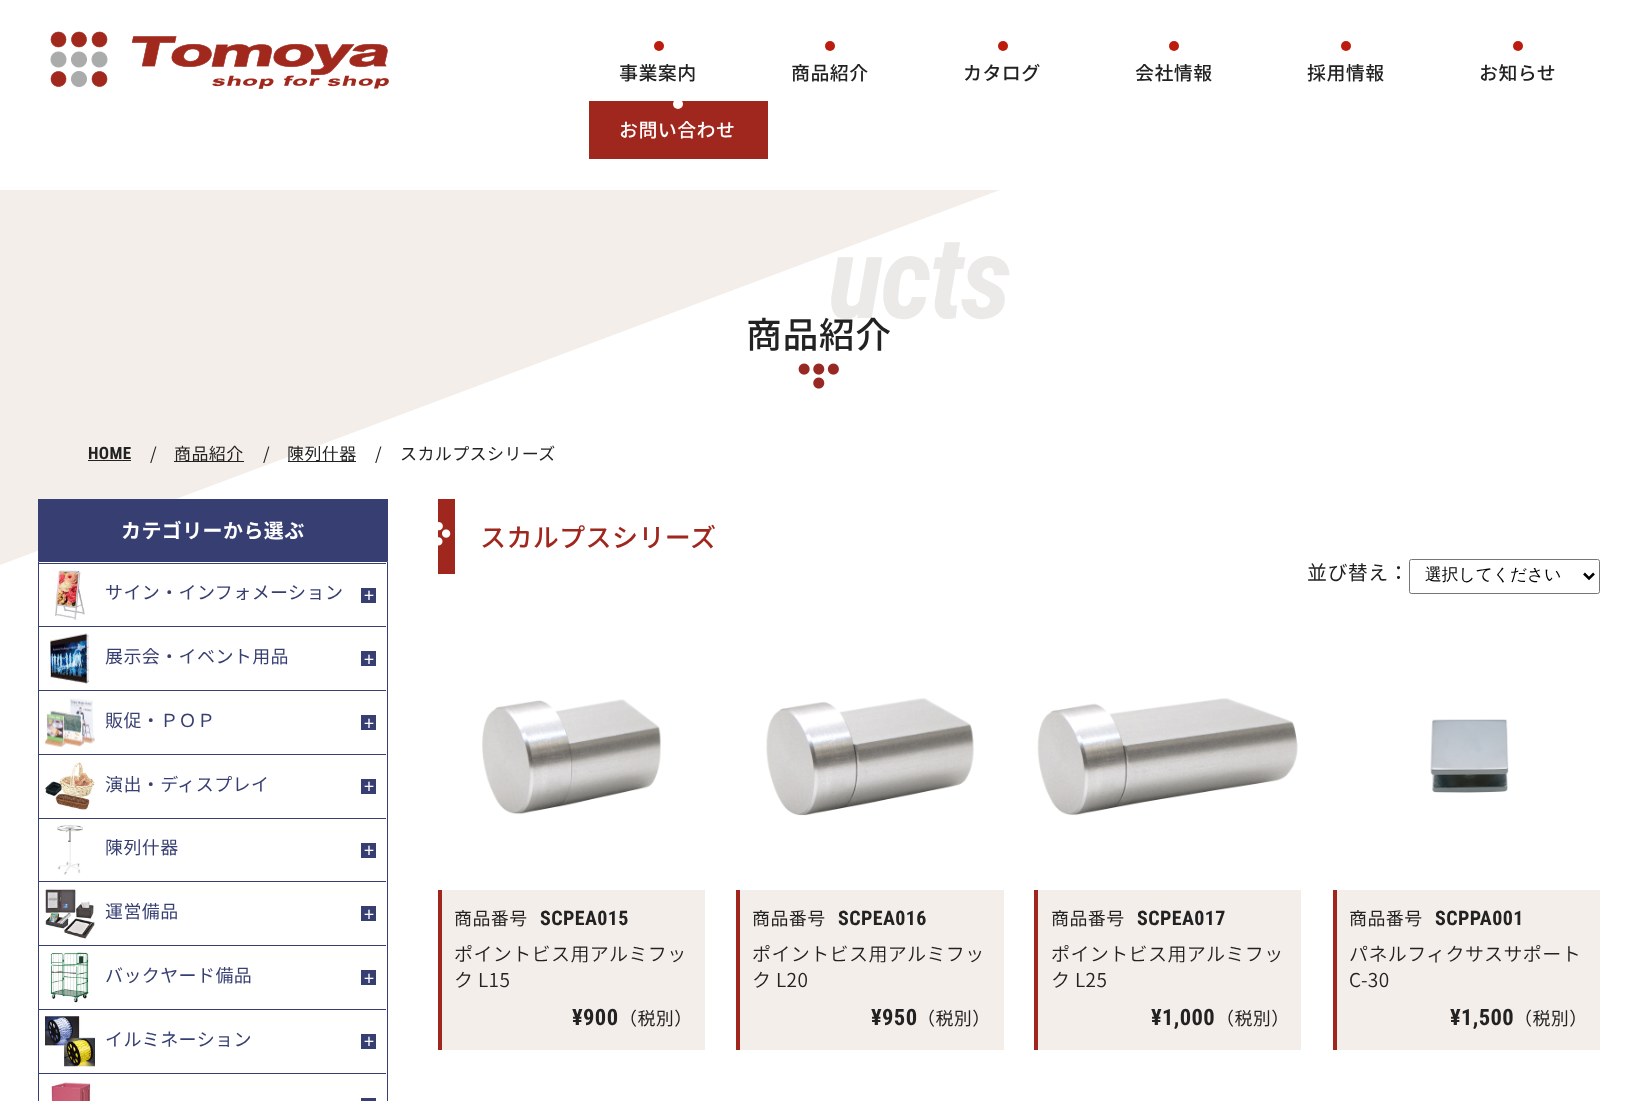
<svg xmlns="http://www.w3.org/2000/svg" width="1637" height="1101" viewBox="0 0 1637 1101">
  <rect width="100%" height="100%" fill="#fff"/>
  <path d="M0 565V-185L1000 190Z" fill="#f4eeea"/>
  <path d="M0 0h1000v190H0z" fill="#fff"/>
  <image x="50" y="31" width="339" height="58" href="img/1.png"/>
  <circle cx="659" cy="46" r="5" fill="#bc1b0e"/>
  <circle cx="830" cy="46" r="5" fill="#bc1b0e"/>
  <circle cx="1003" cy="46" r="5" fill="#bc1b0e"/>
  <circle cx="1174" cy="46" r="5" fill="#bc1b0e"/>
  <circle cx="1346" cy="46" r="5" fill="#bc1b0e"/>
  <circle cx="1518" cy="46" r="5" fill="#bc1b0e"/>
  <path d="M589 101h179v58H589z" fill="#a0271d"/>
  <circle cx="678" cy="104" r="5" fill="#fff"/>
  <image x="798" y="363" width="41" height="26" href="img/2.png"/>
  <path d="M88 460h43v1H88z" fill="#222"/>
  <path d="M174 461h70v1H174z" fill="#222"/>
  <path d="M288 461h68v1H288z" fill="#222"/>
  <path d="M38 499h350v62H38z" fill="#373f72"/>
  <path d="M38.5 561.5h349v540H38.5z" fill="none" stroke="#373f72"/>
  <path d="M39 563h347v1H39z" fill="#373f72"/>
  <image x="55" y="570" width="30" height="50" href="img/3.png"/>
  <path d="M361 588h15v15H361z" fill="#373f72"/>
  <path d="M39 626h347v1H39z" fill="#373f72"/>
  <image x="50" y="633" width="40" height="51" href="img/4.png"/>
  <path d="M361 651h15v15H361z" fill="#373f72"/>
  <path d="M39 690h347v1H39z" fill="#373f72"/>
  <image x="45" y="698" width="50" height="50" href="img/5.png"/>
  <path d="M361 715h15v15H361z" fill="#373f72"/>
  <path d="M39 754h347v1H39z" fill="#373f72"/>
  <image x="45" y="762" width="50" height="48" href="img/6.png"/>
  <path d="M361 779h15v15H361z" fill="#373f72"/>
  <path d="M39 818h347v1H39z" fill="#373f72"/>
  <image x="57" y="825" width="26" height="50" href="img/7.png"/>
  <path d="M361 843h15v15H361z" fill="#373f72"/>
  <path d="M39 881h347v1H39z" fill="#373f72"/>
  <image x="45" y="889" width="50" height="50" href="img/8.png"/>
  <path d="M361 906h15v15H361z" fill="#373f72"/>
  <path d="M39 945h347v1H39z" fill="#373f72"/>
  <image x="50" y="952" width="39" height="51" href="img/9.png"/>
  <path d="M361 970h15v15H361z" fill="#373f72"/>
  <path d="M39 1009h347v1H39z" fill="#373f72"/>
  <image x="45" y="1016" width="50" height="51" href="img/10.png"/>
  <path d="M361 1034h15v15H361z" fill="#373f72"/>
  <path d="M39 1073h347v1H39z" fill="#373f72"/>
  <image x="51" y="1081" width="40" height="20" href="img/11.png"/>
  <path d="M361 1098h15v3H361z" fill="#373f72"/>
  <path d="M438 499h17v75H438z" fill="#a0271d"/>
  <image x="438" y="522" width="13" height="24" href="img/12.png"/>
  <rect x="1409.5" y="559.5" width="190" height="34" rx="2" fill="none" stroke="#767676"/>
  <path d="M1584 573.5L1589 578.5L1594 573.5" fill="none" stroke="#000" stroke-width="2.5"/>
  <image x="447" y="699" width="249" height="191" href="img/13.png"/>
  <path d="M442 890h263v160H442z" fill="#f4eeea"/>
  <path d="M438 890h4v160H438z" fill="#a0261d"/>
  <image x="745" y="698" width="250" height="192" href="img/14.png"/>
  <path d="M740 890h264v160H740z" fill="#f4eeea"/>
  <path d="M736 890h4v160H736z" fill="#a0261d"/>
  <image x="1037" y="698" width="261" height="192" href="img/15.png"/>
  <path d="M1038 890h263v160H1038z" fill="#f4eeea"/>
  <path d="M1034 890h4v160H1034z" fill="#a0261d"/>
  <image x="1342" y="719" width="249" height="171" href="img/16.png"/>
  <path d="M1337 890h263v160H1337z" fill="#f4eeea"/>
  <path d="M1333 890h4v160H1333z" fill="#a0261d"/>
  <g font-family="Noto Sans JP" font-size="19" font-weight="500" letter-spacing="0.4" fill="#222">
    <text x="619" y="80">事業案内</text>
    <text x="791" y="80">商品紹介</text>
    <text x="963" y="80">カタログ</text>
    <text x="1135" y="80">会社情報</text>
    <text x="1307" y="80">採用情報</text>
    <text x="1479" y="80">お知らせ</text>
  </g>
  <text x="619" y="137" font-family="Noto Sans JP" font-size="19" font-weight="500" letter-spacing="0.4" fill="#fff">お問い合わせ</text>
  <text x="828" y="318" font-family="Roboto Condensed" font-size="115" font-weight="bold" font-style="italic" letter-spacing="-2.5" fill="#eceae9">ucts</text>
  <text x="746" y="348" font-family="Noto Sans JP" font-size="36" font-weight="500" letter-spacing="0.4" fill="#222">商品紹介</text>
  <text x="88" y="459" font-family="Roboto Condensed" font-size="17" font-weight="bold" letter-spacing="0.4" fill="#222">HOME</text>
  <g font-family="Noto Sans JP" font-size="17" letter-spacing="0.4" fill="#222">
    <text x="150" y="460">/</text>
    <text x="174" y="460">商品紹介</text>
    <text x="263" y="460">/</text>
    <text x="287" y="460">陳列什器</text>
    <text x="375" y="460">/</text>
    <text x="400" y="460">スカルプスシリーズ</text>
  </g>
  <text x="121" y="538" font-family="Noto Sans JP" font-size="20" font-weight="bold" letter-spacing="0.4" fill="#fff">カテゴリーから選ぶ</text>
  <text x="105" y="599" font-family="Noto Sans JP" font-size="18" letter-spacing="0.4" fill="#373f72">サイン・インフォメーション</text>
  <text x="364" y="602" font-family="Noto Sans JP" font-size="18" letter-spacing="0.4" fill="#fff">+</text>
  <text x="105" y="663" font-family="Noto Sans JP" font-size="18" letter-spacing="0.4" fill="#373f72">展示会・イベント用品</text>
  <text x="364" y="666" font-family="Noto Sans JP" font-size="18" letter-spacing="0.4" fill="#fff">+</text>
  <text x="105" y="727" font-family="Noto Sans JP" font-size="18" letter-spacing="0.4" fill="#373f72">販促・ＰＯＰ</text>
  <text x="364" y="730" font-family="Noto Sans JP" font-size="18" letter-spacing="0.4" fill="#fff">+</text>
  <text x="105" y="791" font-family="Noto Sans JP" font-size="18" letter-spacing="0.4" fill="#373f72">演出・ディスプレイ</text>
  <text x="364" y="793" font-family="Noto Sans JP" font-size="18" letter-spacing="0.4" fill="#fff">+</text>
  <text x="105" y="854" font-family="Noto Sans JP" font-size="18" letter-spacing="0.4" fill="#373f72">陳列什器</text>
  <text x="364" y="857" font-family="Noto Sans JP" font-size="18" letter-spacing="0.4" fill="#fff">+</text>
  <text x="105" y="918" font-family="Noto Sans JP" font-size="18" letter-spacing="0.4" fill="#373f72">運営備品</text>
  <text x="364" y="921" font-family="Noto Sans JP" font-size="18" letter-spacing="0.4" fill="#fff">+</text>
  <text x="105" y="982" font-family="Noto Sans JP" font-size="18" letter-spacing="0.4" fill="#373f72">バックヤード備品</text>
  <text x="364" y="985" font-family="Noto Sans JP" font-size="18" letter-spacing="0.4" fill="#fff">+</text>
  <text x="105" y="1046" font-family="Noto Sans JP" font-size="18" letter-spacing="0.4" fill="#373f72">イルミネーション</text>
  <text x="364" y="1048" font-family="Noto Sans JP" font-size="18" letter-spacing="0.4" fill="#fff">+</text>
  <text x="480" y="547" font-family="Noto Sans JP" font-size="26" font-weight="500" letter-spacing="0.4" fill="#a0271d">スカルプスシリーズ</text>
  <text x="1307" y="580" font-family="Noto Sans JP" font-size="20" letter-spacing="0.4" fill="#222">並び替え：</text>
  <text x="1425" y="580" font-family="WenQuanYi Zen Hei" font-size="16.75" font-weight="500" fill="#000">選択してください</text>
  <text x="454" y="925" font-family="Noto Sans JP" font-size="18" letter-spacing="0.4" fill="#222">商品番号</text>
  <text x="540" y="925" font-family="Roboto Condensed" font-size="20" font-weight="bold" letter-spacing="0.4" fill="#222">SCPEA015</text>
  <g font-family="Noto Sans JP" font-size="19" font-weight="300" letter-spacing="0.4" fill="#222">
    <text x="454" y="961">ポイントビス用アルミフッ</text>
    <text x="454" y="987">ク L15</text>
  </g>
  <text x="572" y="1025" font-family="Roboto Condensed" font-size="22.5" font-weight="bold" letter-spacing="0.4" fill="#222">¥900</text>
  <g font-family="Noto Sans JP" font-size="18" letter-spacing="0.4" fill="#222">
    <text x="619" y="1025">（税別）</text>
    <text x="752" y="925">商品番号</text>
  </g>
  <text x="838" y="925" font-family="Roboto Condensed" font-size="20" font-weight="bold" letter-spacing="0.4" fill="#222">SCPEA016</text>
  <g font-family="Noto Sans JP" font-size="19" font-weight="300" letter-spacing="0.4" fill="#222">
    <text x="752" y="961">ポイントビス用アルミフッ</text>
    <text x="752" y="987">ク L20</text>
  </g>
  <text x="871" y="1025" font-family="Roboto Condensed" font-size="22.5" font-weight="bold" letter-spacing="0.4" fill="#222">¥950</text>
  <g font-family="Noto Sans JP" font-size="18" letter-spacing="0.4" fill="#222">
    <text x="917" y="1025">（税別）</text>
    <text x="1051" y="925">商品番号</text>
  </g>
  <text x="1137" y="925" font-family="Roboto Condensed" font-size="20" font-weight="bold" letter-spacing="0.4" fill="#222">SCPEA017</text>
  <g font-family="Noto Sans JP" font-size="19" font-weight="300" letter-spacing="0.4" fill="#222">
    <text x="1051" y="961">ポイントビス用アルミフッ</text>
    <text x="1051" y="987">ク L25</text>
  </g>
  <text x="1151" y="1025" font-family="Roboto Condensed" font-size="22.5" font-weight="bold" letter-spacing="0.4" fill="#222">¥1,000</text>
  <g font-family="Noto Sans JP" font-size="18" letter-spacing="0.4" fill="#222">
    <text x="1216" y="1025">（税別）</text>
    <text x="1349" y="925">商品番号</text>
  </g>
  <text x="1435" y="925" font-family="Roboto Condensed" font-size="20" font-weight="bold" letter-spacing="0.4" fill="#222">SCPPA001</text>
  <g font-family="Noto Sans JP" font-size="19" font-weight="300" letter-spacing="0.4" fill="#222">
    <text x="1349" y="961">パネルフィクサスサポート</text>
    <text x="1349" y="987">C-30</text>
  </g>
  <text x="1450" y="1025" font-family="Roboto Condensed" font-size="22.5" font-weight="bold" letter-spacing="0.4" fill="#222">¥1,500</text>
  <text x="1514" y="1025" font-family="Noto Sans JP" font-size="18" letter-spacing="0.4" fill="#222">（税別）</text>
</svg>
